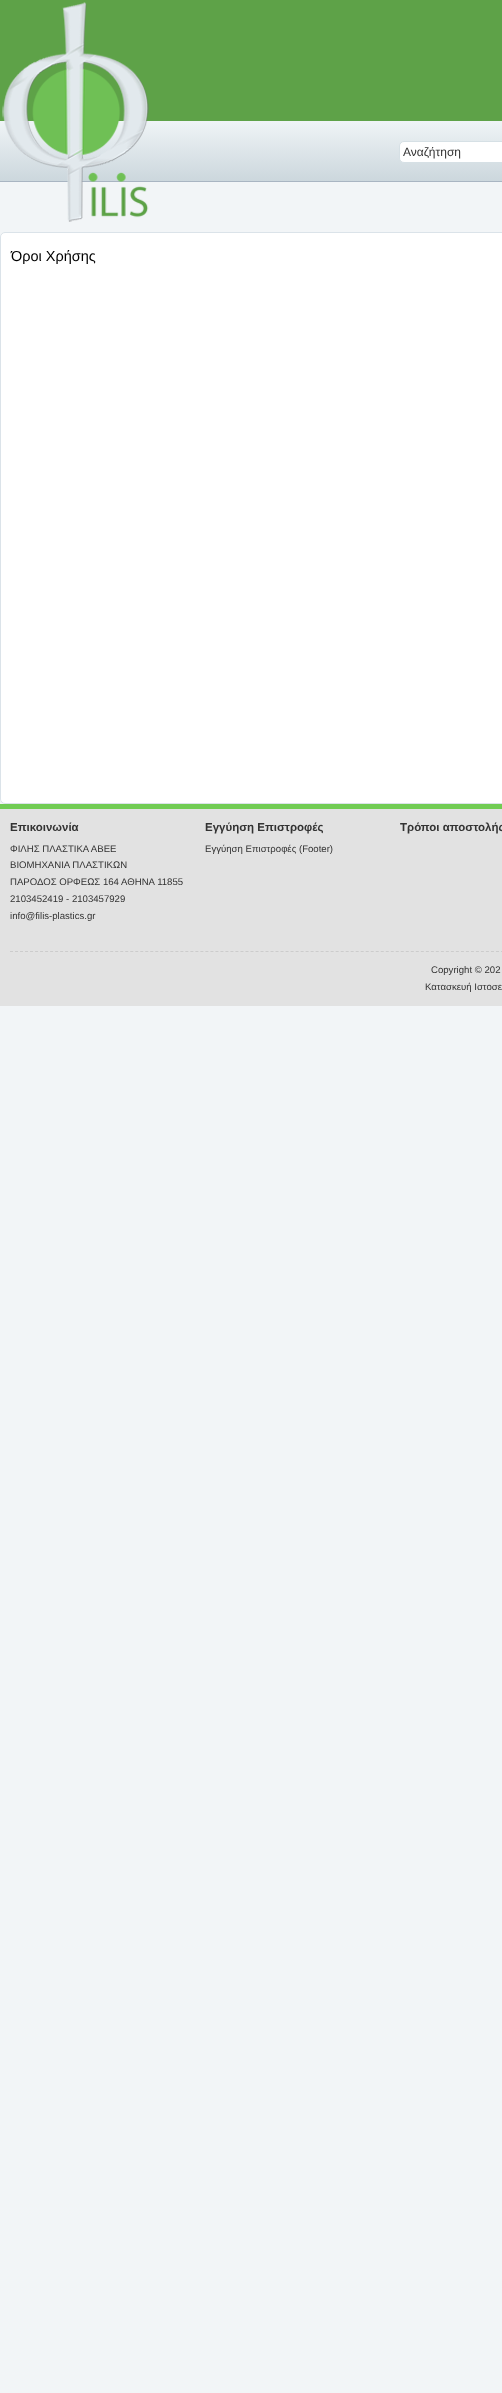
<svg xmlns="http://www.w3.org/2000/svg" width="502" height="2393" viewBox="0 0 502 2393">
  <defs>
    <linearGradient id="g1" gradientUnits="userSpaceOnUse" x1="251" y1="121" x2="251" y2="181"><stop offset="0" stop-color="#eff4f6"/><stop offset="1" stop-color="#ccd7dd"/></linearGradient>
  </defs>
  <rect width="100%" height="100%" fill="#f2f5f7"/>
  <path d="M0 0h502v121H0z" fill="#5ea248"/>
  <path d="M0 121h502v60H0z" fill="url(#g1)"/>
  <path d="M0 181h502v1H0z" fill="#a9b5c2"/>
  <image x="2" y="2" width="147" height="220" href="img/1.png"/>
  <rect x="399.5" y="141.5" width="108" height="21" rx="4.5" fill="#fff" stroke="#d6e0e5"/>
  <rect x="0.5" y="232.5" width="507" height="571" rx="4.5" fill="#fff" stroke="#dbe3e9"/>
  <path d="M0 809h502v197H0z" fill="#e2e2e2"/>
  <path d="M0 804h502v5H0z" fill="#71cc53"/>
  <path d="M10 951.5H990" fill="none" stroke="#ccc" stroke-dasharray="3 2.01"/>
  <text x="403" y="156" font-family="Liberation Sans" font-size="12" fill="#333">Αναζήτηση</text>
  <text x="11" y="261" font-family="Liberation Sans" font-size="14.5" fill="#000">Όροι Χρήσης</text>
  <text x="10" y="831" font-family="Liberation Sans" font-size="11.5" font-weight="bold" fill="#333">Επικοινωνία</text>
  <g font-family="Liberation Sans" font-size="9.6" fill="#333">
    <text x="10" y="852">ΦΙΛΗΣ ΠΛΑΣΤΙΚΑ ΑΒΕΕ</text>
    <text x="10" y="868">ΒΙΟΜΗΧΑΝΙΑ ΠΛΑΣΤΙΚΩΝ</text>
    <text x="10" y="885">ΠΑΡΟΔΟΣ ΟΡΦΕΩΣ 164 ΑΘΗΝΑ 11855</text>
    <text x="10" y="902">2103452419 - 2103457929</text>
    <text x="10" y="919">info@filis-plastics.gr</text>
  </g>
  <text x="205" y="831" font-family="Liberation Sans" font-size="11.5" font-weight="bold" fill="#333">Εγγύηση Επιστροφές</text>
  <text x="205" y="852" font-family="Liberation Sans" font-size="9.6" fill="#333">Εγγύηση Επιστροφές (Footer)</text>
  <text x="400" y="831" font-family="Liberation Sans" font-size="11.5" font-weight="bold" fill="#333">Τρόποι αποστολής</text>
  <g font-family="Liberation Sans" font-size="9.6" fill="#333">
    <text x="431" y="973">Copyright © 202</text>
    <text x="425" y="990">Κατασκευή Ιστοσε</text>
  </g>
</svg>
